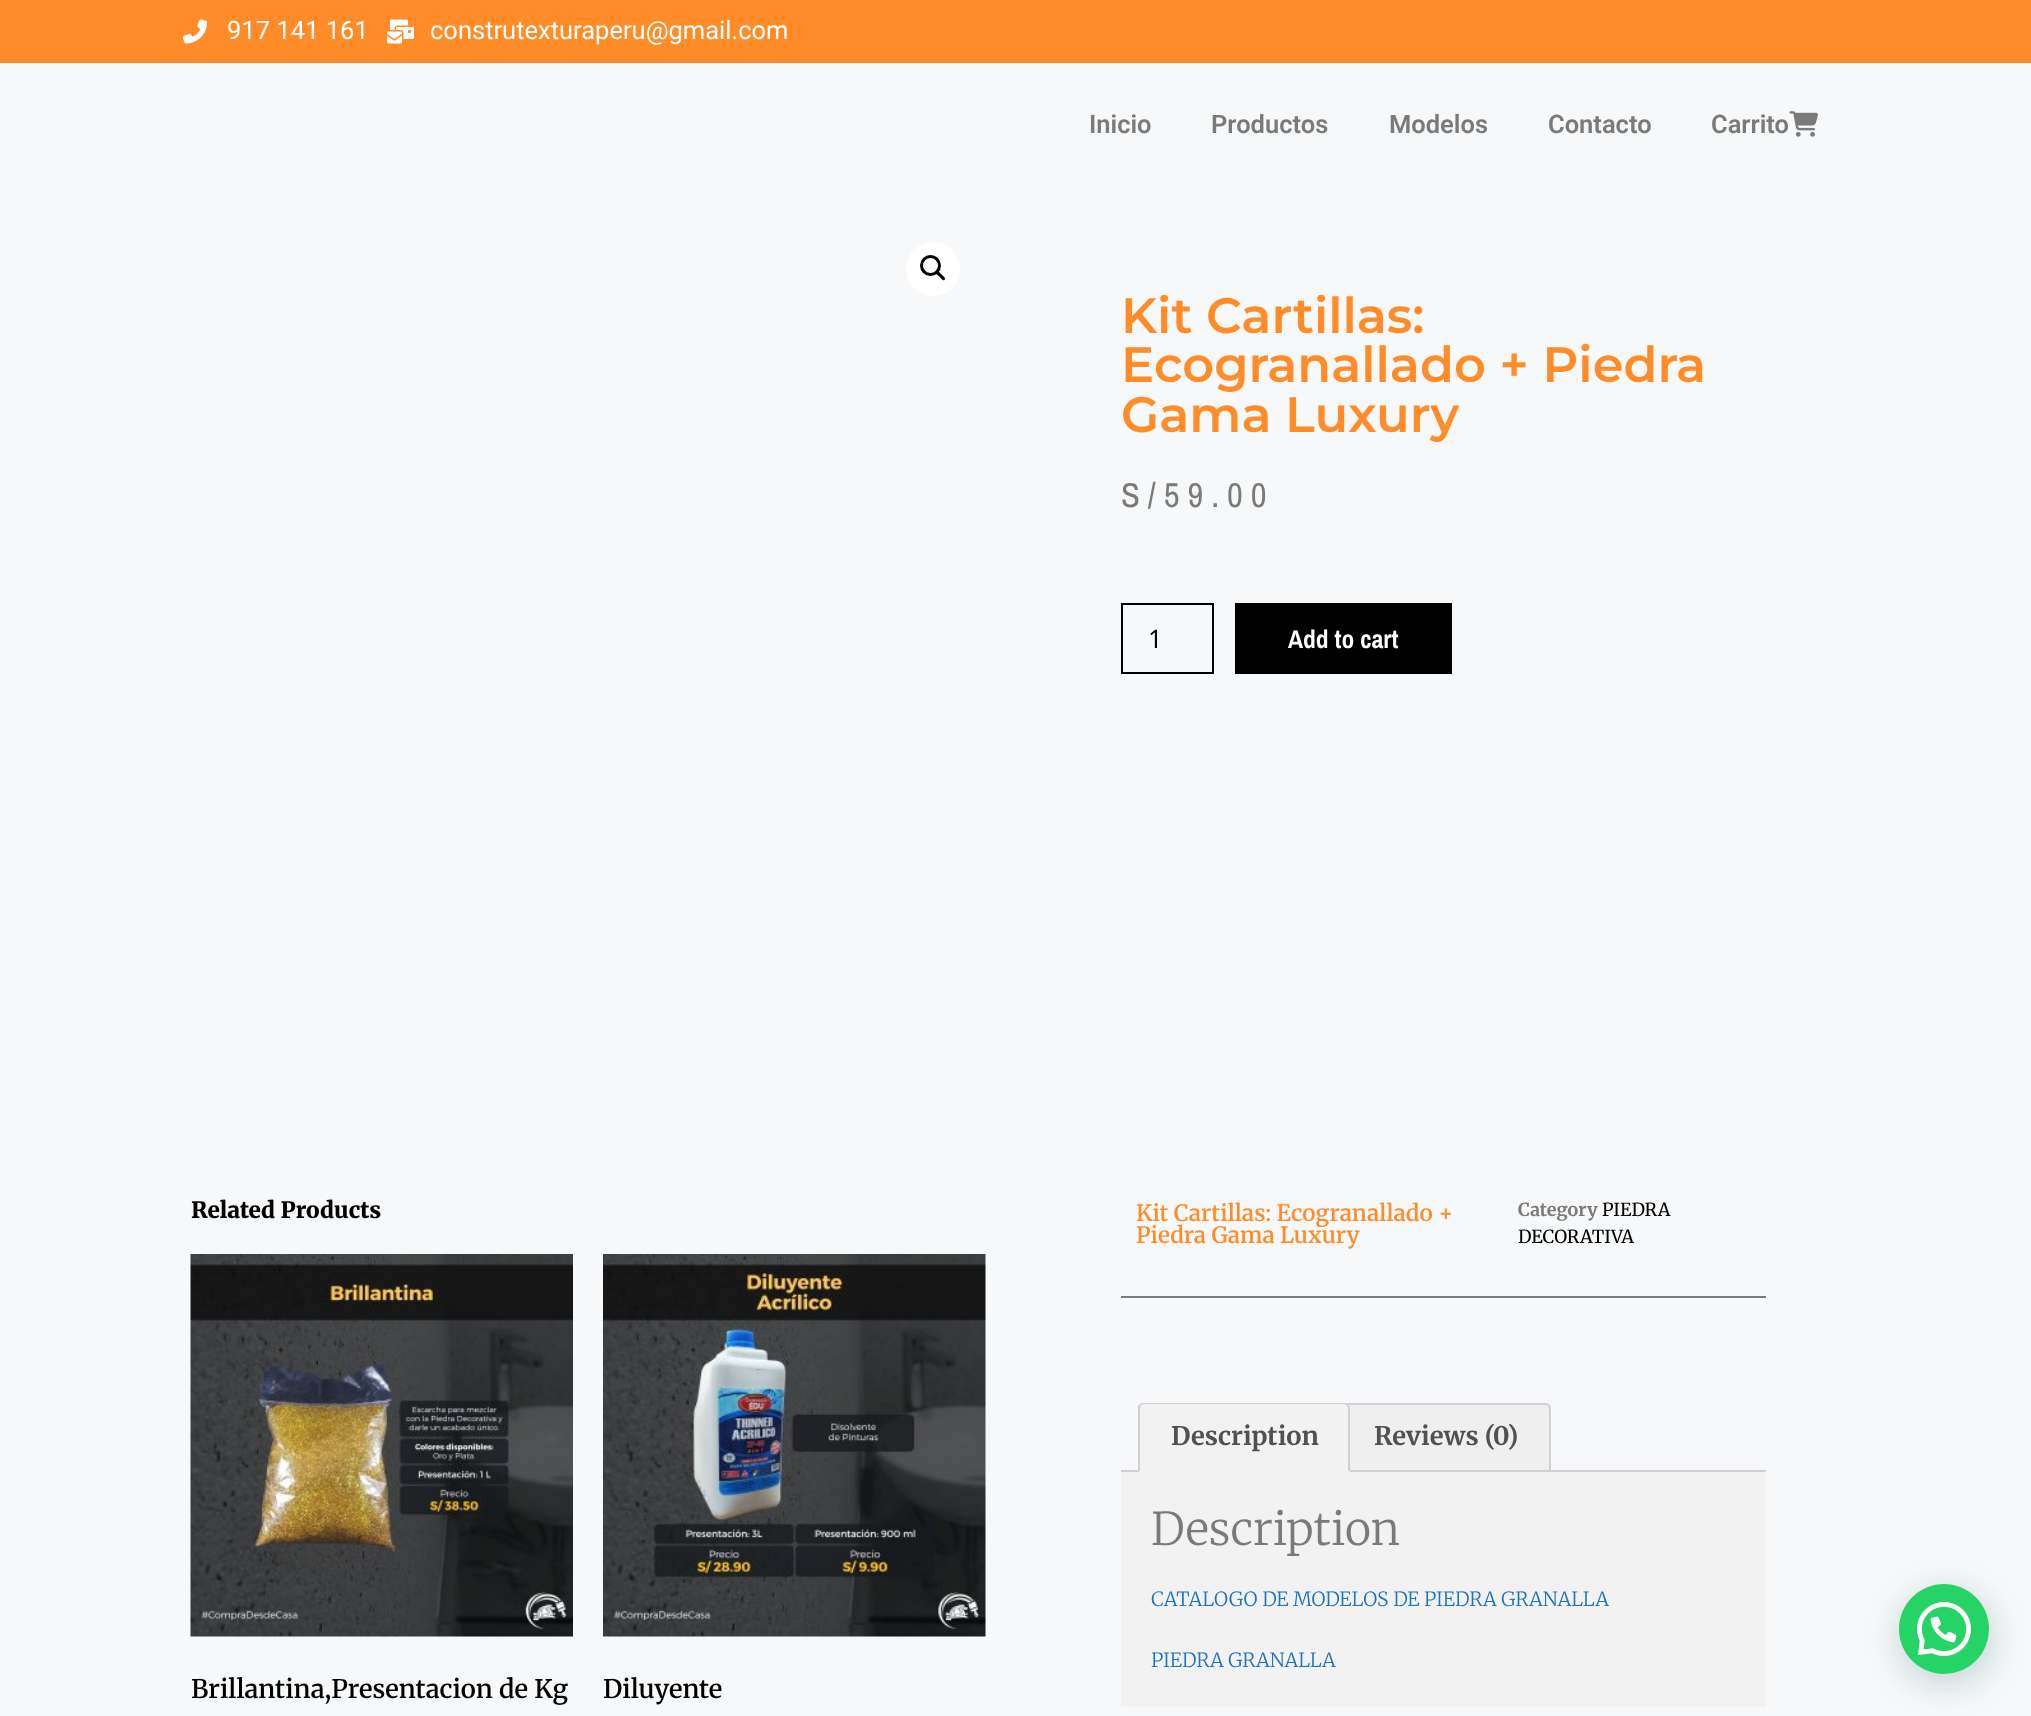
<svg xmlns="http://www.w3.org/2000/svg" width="2031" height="1716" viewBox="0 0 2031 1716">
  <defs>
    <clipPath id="clip1"><path d="M1121 1403h645v69H1121z"/></clipPath>
  </defs>
  <rect width="100%" height="100%" fill="#f7f8f9"/>
  <path d="M0 0h2031v63H0z" fill="#ff8c28"/>
  <image x="183" y="19" width="24" height="25" href="img/1.png"/>
  <image x="387" y="19" width="27" height="25" href="img/2.png"/>
  <image x="1789" y="111" width="29" height="26" href="img/3.png"/>
  <circle cx="933" cy="269" r="27" fill="#fff"/>
  <circle cx="930.5" cy="265.5" r="9" fill="none" stroke="#000" stroke-width="3"/>
  <path d="M936.5 271.5C938 269.5 940.5 273.5 941.5 274.5C942.5 275.5 946.5 278 944.5 280C943 281.5 940.5 277.5 939.5 276.5C938.5 276 934.5 273 936.5 271.5Z" fill="#000"/>
  <path d="M1122 604h91v69H1122z" fill="none" stroke="#000" stroke-width="2"/>
  <path d="M1235 603h217v71H1235z" fill="#000"/>
  <image x="190" y="1254" width="383" height="383" href="img/4.png"/>
  <image x="603" y="1254" width="383" height="383" href="img/5.png"/>
  <path d="M1121 1296h645v2H1121z" fill="#7a7a7a"/>
  <path d="M1121 1470h645v2H1121z" fill="#d3ced2"/>
  <path d="M1349 1404H1545C1548 1404 1550 1406 1550 1409V1471H1344V1409C1344 1406 1346 1404 1349 1404Z" fill="#efefef" stroke="#d3ced2" stroke-width="2"/>
  <path d="M1145 1403H1344C1347.5 1403 1350 1405.5 1350 1409V1472H1139V1409C1139 1405.5 1141.5 1403 1145 1403Z" fill="#f2f2f2"/>
  <g clip-path="url(#clip1)">
    <path d="M1144 1404L1141 1405L1140 1404L1142 1402H1312C1324 1402 1340 1395 1348 1404L1347 1406C1346 1405 1345 1404 1344 1404Z" fill="#d3ced2"/>
  </g>
  <path d="M1350 1472V1408C1350 1407 1349 1405 1348 1404L1347 1406L1348 1408V1470Z" fill="#d3ced2"/>
  <path d="M1350 1472L1348 1470H1140L1138 1472Z" fill="#f2f2f2"/>
  <path d="M1138 1472V1406L1140 1404L1141 1405L1140 1408V1470Z" fill="#d3ced2"/>
  <path d="M1121 1472h645v235H1121z" fill="#f2f2f2"/>
  <rect x="1901" y="1593" width="90" height="90" rx="45" fill="#075e543d" filter="blur(18px)"/>
  <circle cx="1944" cy="1629" r="45" fill="#25d366"/>
  <image x="1917" y="1602" width="54" height="54" href="img/6.png"/>
  <g font-family="Roboto" font-size="25.5" fill="#fff">
    <text x="227" y="39">917 141 161</text>
    <text x="430" y="39">construtexturaperu@gmail.com</text>
  </g>
  <g font-family="Roboto" font-size="25.5" font-weight="600" fill="#7a7a7a">
    <text x="1089" y="133">Inicio</text>
    <text x="1211" y="133">Productos</text>
    <text x="1389" y="133">Modelos</text>
    <text x="1548" y="133">Contacto</text>
    <text x="1711" y="133">Carrito</text>
  </g>
  <g font-family="Montserrat" font-size="49.5" font-weight="600" fill="#ff8c28">
    <text x="1121" y="333">Kit Cartillas:</text>
    <text x="1121" y="382">Ecogranallado + Piedra</text>
    <text x="1121" y="432">Gama Luxury</text>
  </g>
  <text x="1121" y="507" font-family="Archivo Narrow" font-size="34.5" letter-spacing="8" fill="#7a7a7a">S/59.00</text>
  <text x="1148" y="648" font-family="Noto Sans" font-size="25.5" fill="#000">1</text>
  <text x="1288" y="648" font-family="Archivo Narrow" font-size="25.5" font-weight="bold" fill="#fff">Add to cart</text>
  <text x="191" y="1218" font-family="Merriweather" font-size="22.5" font-weight="900" fill="#000">Related Products</text>
  <g font-family="Merriweather" font-size="25.5" font-weight="600" fill="#000">
    <text x="191" y="1698">Brillantina,Presentacion de Kg</text>
    <text x="603" y="1698">Diluyente</text>
  </g>
  <g font-family="Merriweather" font-size="22.5" font-weight="600" fill="#ff8c28">
    <text x="1136" y="1221">Kit Cartillas: Ecogranallado +</text>
    <text x="1136" y="1243">Piedra Gama Luxury</text>
  </g>
  <text x="1518" y="1216" font-family="Merriweather" font-size="18" font-weight="bold" fill="#7a7a7a">Category</text>
  <g font-family="Merriweather" font-size="18" fill="#000">
    <text x="1602" y="1216">PIEDRA</text>
    <text x="1518" y="1243">DECORATIVA</text>
  </g>
  <g font-family="Merriweather" font-size="25.5" font-weight="bold" fill="#515151">
    <text x="1171" y="1445">Description</text>
    <text x="1374" y="1445">Reviews (0)</text>
  </g>
  <text x="1151" y="1545" font-family="Merriweather" font-size="45" font-weight="300" fill="#7a7a7a">Description</text>
  <g font-family="Merriweather" font-size="19.5" font-weight="300" fill="#1e73be">
    <text x="1151" y="1606">CATALOGO DE MODELOS DE PIEDRA GRANALLA</text>
    <text x="1151" y="1667">PIEDRA GRANALLA</text>
  </g>
</svg>
